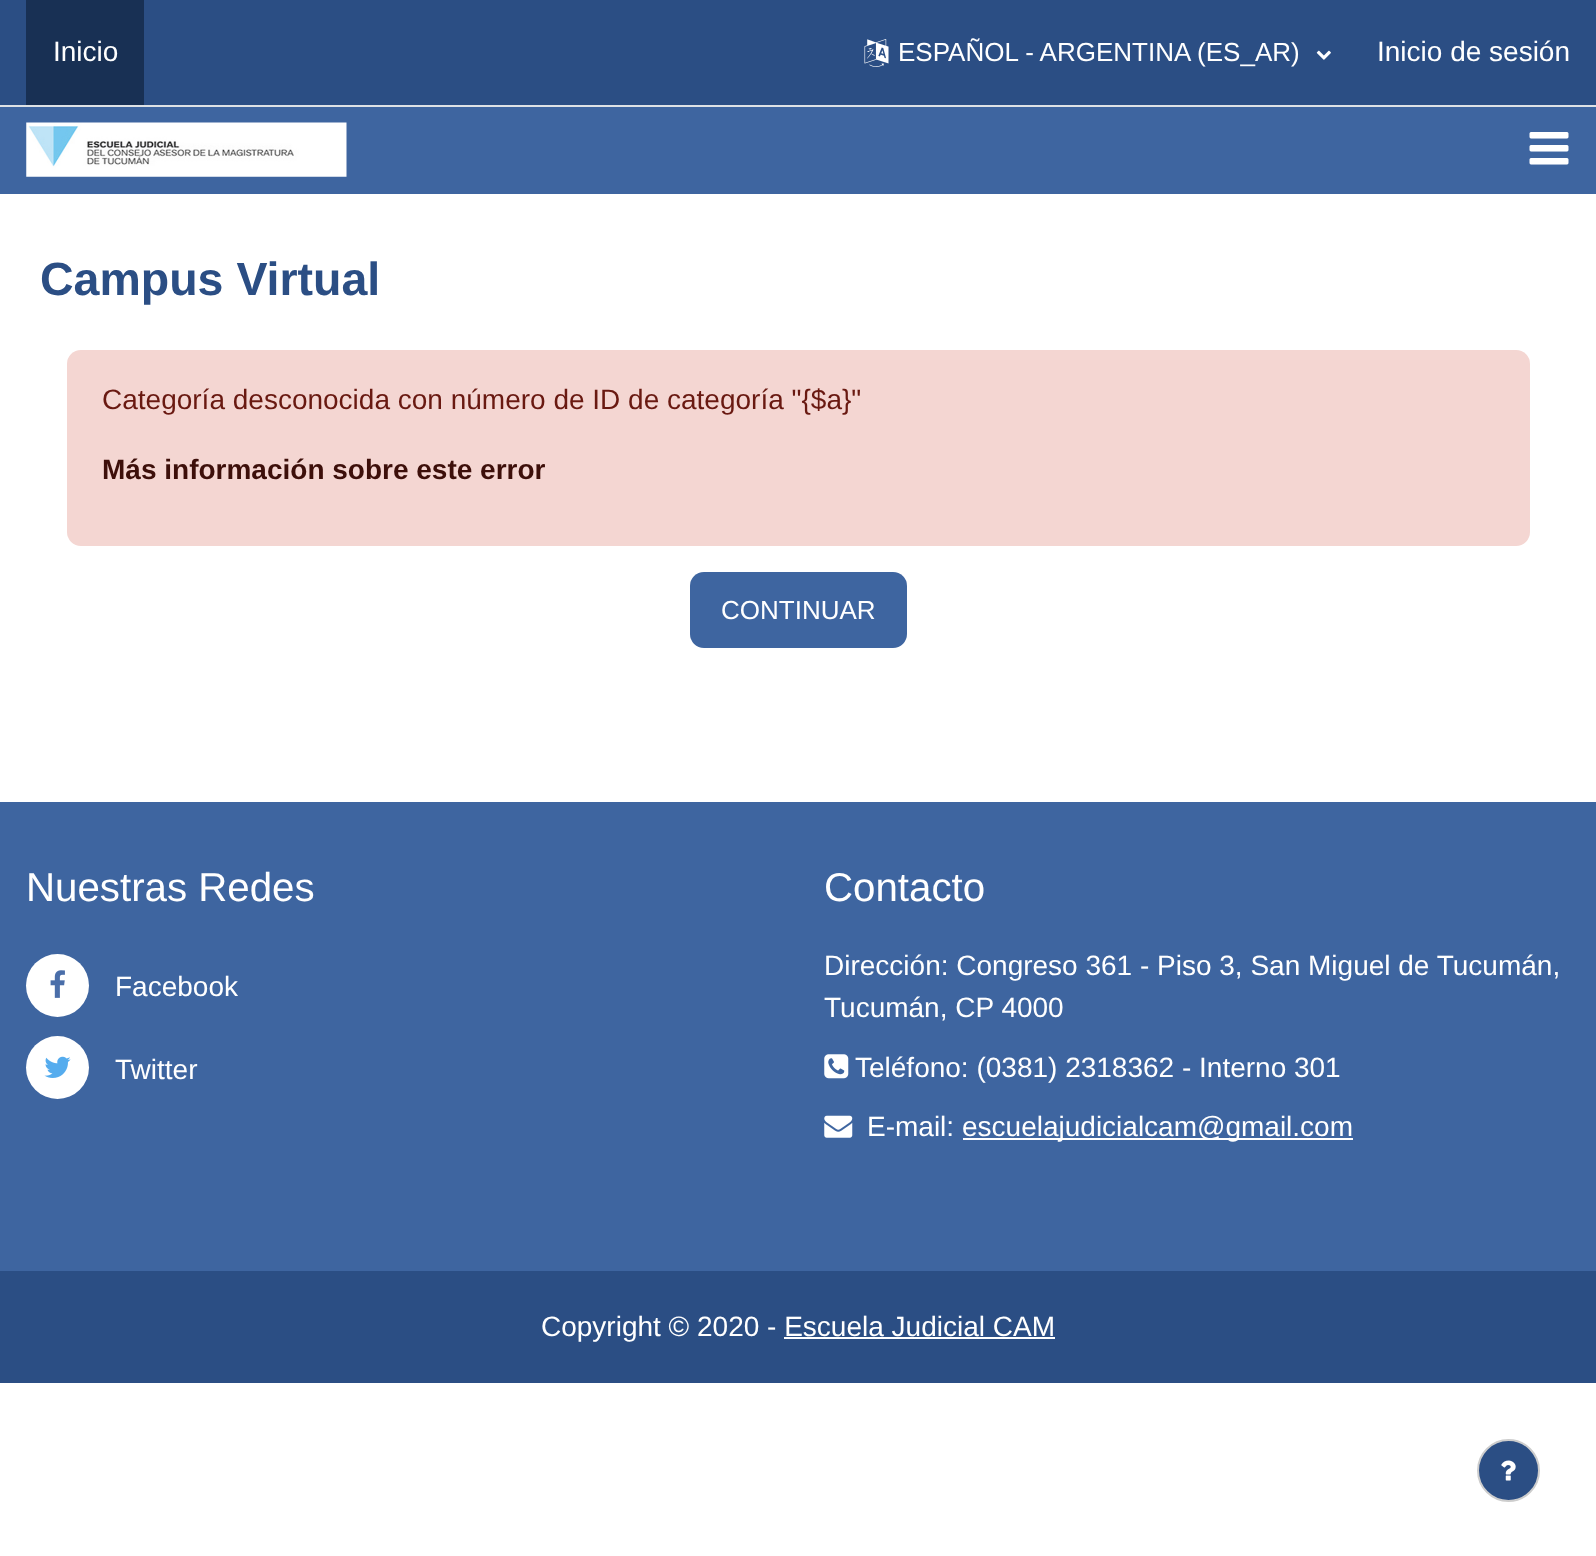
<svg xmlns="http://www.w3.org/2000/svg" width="1596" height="1556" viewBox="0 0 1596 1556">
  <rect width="100%" height="100%" fill="#fff"/>
  <path d="M0 0h1596v105H0z" fill="#2b4e84"/>
  <path d="M0 105h1596v2H0z" fill="#dee2e6"/>
  <path d="M26 0h118v105H26z" fill="#183054"/>
  <image x="864" y="39" width="25" height="28" href="img/1.png"/>
  <image x="1316" y="50" width="15" height="10" href="img/2.png"/>
  <path d="M0 107h1596v87H0z" fill="#3e65a0"/>
  <image x="26" y="122" width="321" height="55" href="img/3.png"/>
  <image x="1529" y="132" width="40" height="33" href="img/4.png"/>
  <rect x="67" y="350" width="1463" height="196" rx="14" fill="#f4d6d2"/>
  <rect x="690" y="572" width="217" height="76" rx="14" fill="#3e65a0"/>
  <path d="M0 802h1596v469H0z" fill="#3e65a0"/>
  <circle cx="57.5" cy="985.5" r="31.5" fill="#fff"/>
  <image x="50" y="970" width="15" height="28" href="img/5.png"/>
  <circle cx="57.5" cy="1067.5" r="31.5" fill="#fff"/>
  <image x="44" y="1056" width="27" height="22" href="img/6.png"/>
  <image x="824" y="1054" width="25" height="25" href="img/7.png"/>
  <image x="824" y="1115" width="29" height="23" href="img/8.png"/>
  <path d="M963 1138h390v2H963z" fill="#fff"/>
  <path d="M0 1271h1596v112H0z" fill="#2b4e84"/>
  <path d="M784 1337h271v2H784z" fill="#fff"/>
  <circle cx="1508.5" cy="1470.5" r="30.5" fill="#2b4e84" stroke="#cdcdcd" stroke-width="2"/>
  <image x="1501" y="1460" width="15" height="21" href="img/9.png"/>
  <text x="53" y="61" font-family="Liberation Sans" font-size="28" fill="#fff">Inicio</text>
  <text x="898" y="61" font-family="Liberation Sans" font-size="26" fill="#fff">ESPAÑOL - ARGENTINA (ES_AR)</text>
  <text x="1377" y="61" font-family="Liberation Sans" font-size="28" fill="#fff">Inicio de sesión</text>
  <text x="40" y="295" font-family="Liberation Sans" font-size="46.5" font-weight="bold" fill="#2b4e84">Campus Virtual</text>
  <text x="102" y="409" font-family="Liberation Sans" font-size="28" fill="#691911">Categoría desconocida con número de ID de categoría "{$a}"</text>
  <text x="102" y="479" font-family="Liberation Sans" font-size="28" font-weight="bold" fill="#3d0f0a">Más información sobre este error</text>
  <text x="721" y="619" font-family="Liberation Sans" font-size="26" fill="#fff">CONTINUAR</text>
  <text x="26" y="901" font-family="Liberation Sans" font-size="40.25" fill="#fff">Nuestras Redes</text>
  <g font-family="Liberation Sans" font-size="28" fill="#fff">
    <text x="115" y="996">Facebook</text>
    <text x="115" y="1079">Twitter</text>
  </g>
  <text x="824" y="901" font-family="Liberation Sans" font-size="40.25" fill="#fff">Contacto</text>
  <g font-family="Liberation Sans" font-size="28" fill="#fff">
    <text x="824" y="975">Dirección: Congreso 361 - Piso 3, San Miguel de Tucumán,</text>
    <text x="824" y="1017">Tucumán, CP 4000</text>
    <text x="855" y="1077">Teléfono: (0381) 2318362 - Interno 301</text>
    <text x="867" y="1136">E-mail:</text>
    <text x="962" y="1136">escuelajudicialcam@gmail.com</text>
    <text x="541" y="1336">Copyright © 2020 - Escuela Judicial CAM</text>
  </g>
</svg>
